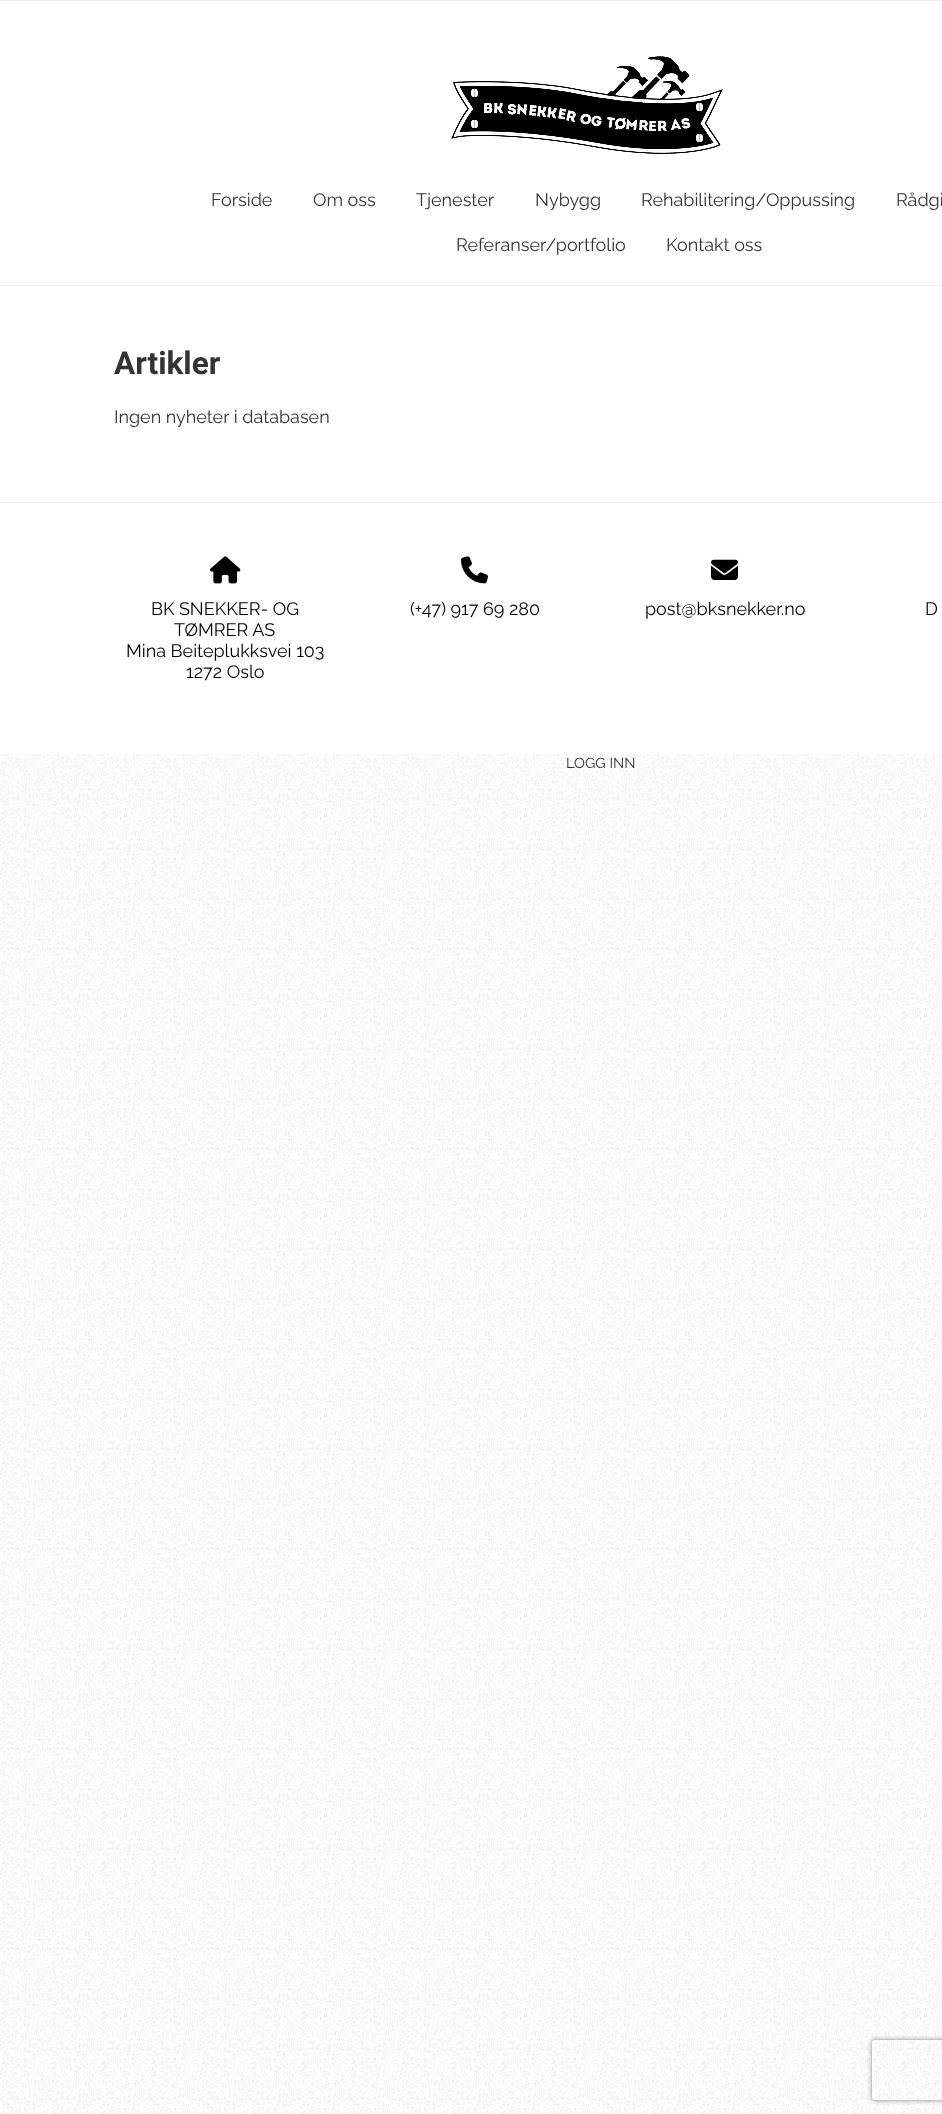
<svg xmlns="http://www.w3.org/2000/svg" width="942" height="2114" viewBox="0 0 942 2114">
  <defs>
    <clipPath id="clip1"><path d="M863 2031H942V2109H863ZM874 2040H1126C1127 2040 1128 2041 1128 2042V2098C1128 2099 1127 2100 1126 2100H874C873 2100 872 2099 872 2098V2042C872 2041 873 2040 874 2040Z" clip-rule="evenodd"/></clipPath>
  </defs>
  <rect width="100%" height="100%" fill="#fff"/>
  <image x="0" y="754" width="942" height="1360" href="img/1.png"/>
  <path d="M0 0h942v1H0z" fill="#eee"/>
  <path d="M0 285h942v1H0z" fill="#eee"/>
  <image x="451" y="56" width="272" height="98" href="img/2.png"/>
  <path d="M0 502h942v1H0z" fill="#eee"/>
  <image x="210" y="556" width="31" height="28" href="img/3.png"/>
  <image x="461" y="556" width="27" height="28" href="img/4.png"/>
  <image x="711" y="559" width="27" height="21" href="img/5.png"/>
  <g clip-path="url(#clip1)">
    <rect x="872" y="2040" width="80" height="60" rx="2" fill="#808080" filter="blur(2.5px)"/>
  </g>
  <g font-family="Raleway" font-size="18" fill="#333">
    <text x="211" y="206">Forside</text>
    <text x="313" y="206">Om oss</text>
    <text x="416" y="206">Tjenester</text>
    <text x="535" y="206">Nybygg</text>
    <text x="641" y="206">Rehabilitering/Oppussing</text>
    <text x="896" y="206">Rådgi</text>
    <text x="456" y="251">Referanser/portfolio</text>
    <text x="666" y="251">Kontakt oss</text>
  </g>
  <text x="114" y="374" font-family="Roboto" font-size="31.5" font-weight="bold" fill="#333">Artikler</text>
  <text x="114" y="423" font-family="Raleway" font-size="18" fill="#333">Ingen nyheter i databasen</text>
  <g font-family="Raleway" font-size="18" fill="#000">
    <text x="151" y="615">BK SNEKKER- OG</text>
    <text x="174" y="636">TØMRER AS</text>
    <text x="126" y="657">Mina Beiteplukksvei 103</text>
    <text x="186" y="678">1272 Oslo</text>
    <text x="410" y="615">(+47) 917 69 280</text>
    <text x="645" y="615">post@bksnekker.no</text>
    <text x="925" y="615">D</text>
  </g>
  <text x="566" y="768" font-family="Raleway" font-size="14.5" fill="#333">LOGG INN</text>
</svg>
